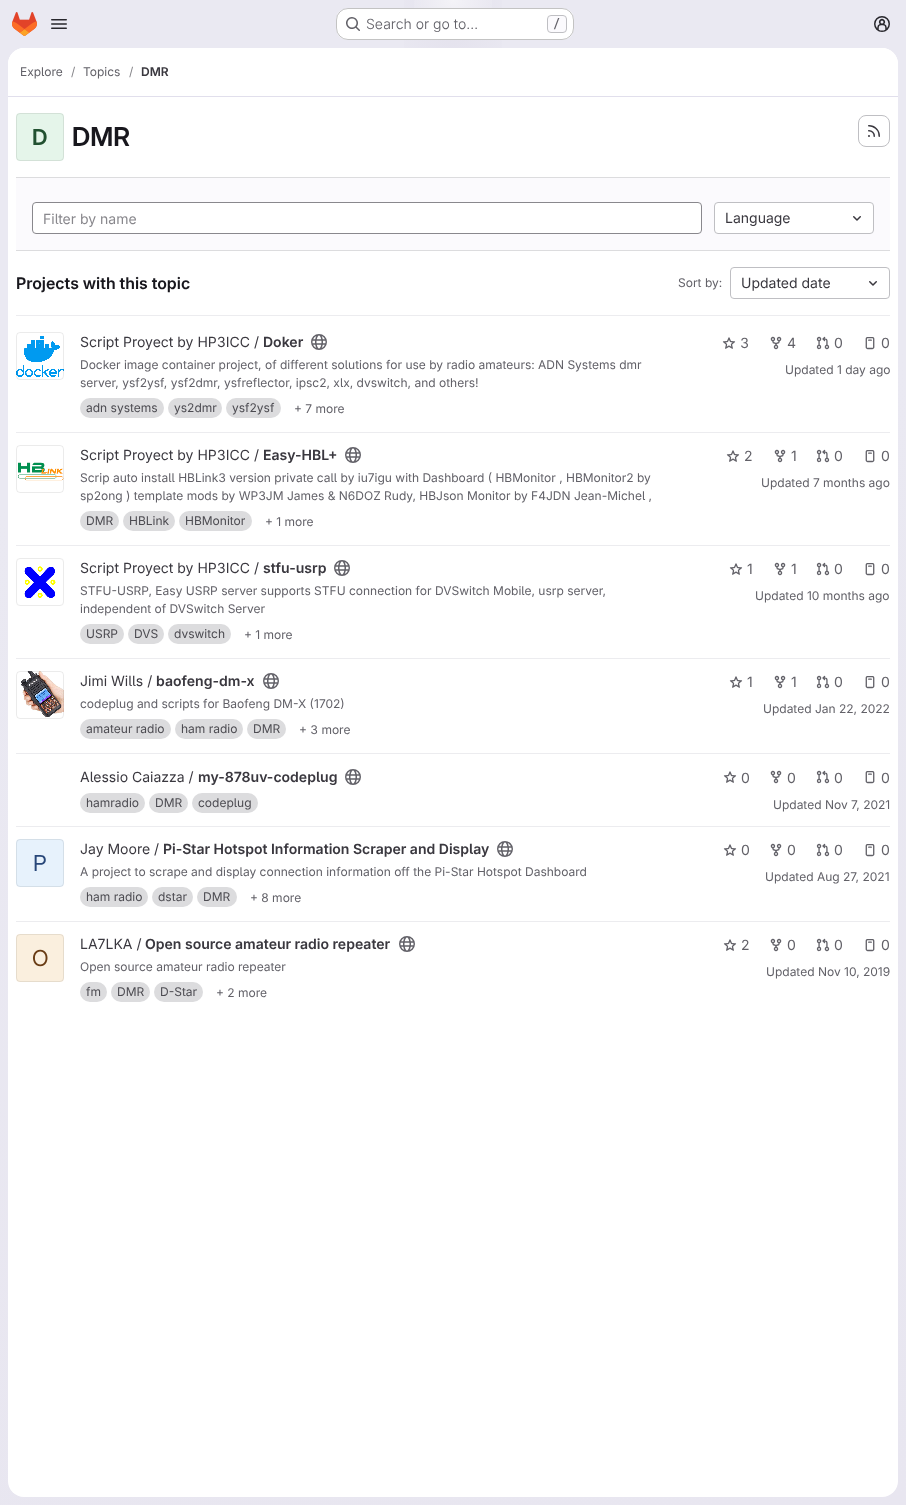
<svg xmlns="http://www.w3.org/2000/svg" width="906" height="1505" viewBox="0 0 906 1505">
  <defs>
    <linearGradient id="g1" gradientUnits="userSpaceOnUse" x1="595" y1="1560" x2="311" y2="-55"><stop offset="0" stop-color="#e8e6f0"/><stop offset="0.7" stop-color="#eae9f2"/></linearGradient>
    <radialGradient id="g2" gradientUnits="userSpaceOnUse" cx="0" cy="0" r="1" gradientTransform="matrix(453 0 0 1505 453 0)"><stop offset="0" stop-color="#e4e2ed"/><stop offset="0.15" stop-color="#e4e2ed" stop-opacity="0"/></radialGradient>
    <radialGradient id="g3" gradientUnits="userSpaceOnUse" cx="0" cy="0" r="1" gradientTransform="matrix(453 0 0 1505 453 0)"><stop offset="0" stop-color="#e4e2ec"/><stop offset="0.11" stop-color="#e4e2ec" stop-opacity="0"/></radialGradient>
    <radialGradient id="g4" gradientUnits="userSpaceOnUse" cx="453" cy="0" r="1572"><stop offset="0" stop-color="#fff" stop-opacity="0.6"/><stop offset="0.03" stop-color="#fff" stop-opacity="0"/></radialGradient>
  </defs>
  <rect width="100%" height="100%" fill="#fff"/>
  <path d="M0 0h906v1505H0z" fill="url(#g1)"/>
  <path d="M404 0h98v48H404z" fill="url(#g2)"/>
  <path d="M441 11h25v28H441z" fill="url(#g3)"/>
  <path d="M414 0h78v40H414z" fill="url(#g4)"/>
  <image x="12" y="12" width="25" height="24" href="img/1.png"/>
  <image x="51" y="19" width="16" height="10" href="img/2.png"/>
  <rect x="336" y="8" width="238" height="32" rx="12" fill="#fff"/>
  <rect x="336.5" y="8.5" width="237" height="31" rx="11.5" fill="none" stroke="#0505063d"/>
  <image x="346" y="17" width="14" height="14" href="img/3.png"/>
  <rect x="547.5" y="15.5" width="19" height="17" rx="3.5" fill="#fbfafd" stroke="#bfbfc3"/>
  <image x="874" y="16" width="16" height="16" href="img/4.png"/>
  <rect x="8" y="48" width="890" height="1449" rx="16" fill="#fff"/>
  <path d="M24 48H882C891 48 898 55 898 64V97H8V64C8 55 15 48 24 48Z" fill="#fff"/>
  <path d="M8 96h890v1H8z" fill="#e1dfec"/>
  <rect x="16" y="113" width="48" height="48" rx="4" fill="#e5f5ea"/>
  <rect x="16.5" y="113.5" width="47" height="47" rx="3.5" fill="none" stroke="#05050614"/>
  <rect x="858.5" y="115.5" width="31" height="31" rx="7.5" fill="none" stroke="#bfbfc3"/>
  <image x="868" y="125" width="12" height="12" href="img/5.png"/>
  <path d="M16 178h874v72H16z" fill="#fbfafd"/>
  <path d="M16 177h874v1H16z" fill="#dcdcde"/>
  <path d="M16 250h874v1H16z" fill="#dcdcde"/>
  <rect x="32.5" y="202.5" width="669" height="31" rx="3.5" fill="#fff" stroke="#89888d"/>
  <rect x="714.5" y="202.5" width="159" height="31" rx="3.5" fill="#fff" stroke="#bfbfc3"/>
  <image x="853" y="216" width="8" height="5" href="img/6.png"/>
  <path d="M16 315h874v1H16z" fill="#ececef"/>
  <rect x="730.5" y="267.5" width="159" height="31" rx="3.5" fill="none" stroke="#bfbfc3"/>
  <image x="869" y="281" width="8" height="5" href="img/6.png"/>
  <path d="M16 432h874v1H16z" fill="#ececef"/>
  <image x="16" y="336" width="48" height="41" href="img/7.png"/>
  <rect x="16.5" y="332.5" width="47" height="47" rx="3.5" fill="none" stroke="#05050614"/>
  <image x="311" y="334" width="16" height="16" href="img/8.png"/>
  <rect x="80" y="398" width="84" height="20" rx="10" fill="#dcdcde"/>
  <rect x="168" y="398" width="54" height="20" rx="10" fill="#dcdcde"/>
  <rect x="226" y="398" width="55" height="20" rx="10" fill="#dcdcde"/>
  <image x="722" y="337" width="14" height="12" href="img/9.png"/>
  <image x="770" y="336" width="12" height="14" href="img/10.png"/>
  <image x="816" y="336" width="14" height="14" href="img/11.png"/>
  <image x="865" y="337" width="10" height="13" href="img/12.png"/>
  <path d="M16 545h874v1H16z" fill="#ececef"/>
  <image x="18" y="462" width="46" height="19" href="img/13.png"/>
  <rect x="16.5" y="445.5" width="47" height="47" rx="3.5" fill="none" stroke="#05050614"/>
  <image x="345" y="447" width="16" height="16" href="img/8.png"/>
  <rect x="80" y="511" width="39" height="20" rx="10" fill="#dcdcde"/>
  <rect x="123" y="511" width="52" height="20" rx="10" fill="#dcdcde"/>
  <rect x="179" y="511" width="73" height="20" rx="10" fill="#dcdcde"/>
  <image x="726" y="450" width="14" height="12" href="img/9.png"/>
  <image x="774" y="449" width="12" height="14" href="img/14.png"/>
  <image x="816" y="449" width="14" height="14" href="img/15.png"/>
  <image x="865" y="450" width="10" height="13" href="img/12.png"/>
  <path d="M16 658h874v1H16z" fill="#ececef"/>
  <image x="24" y="566" width="32" height="32" href="img/16.png"/>
  <rect x="16.5" y="558.5" width="47" height="47" rx="3.5" fill="none" stroke="#ebebeb"/>
  <image x="334" y="560" width="16" height="16" href="img/8.png"/>
  <rect x="80" y="624" width="44" height="20" rx="10" fill="#dcdcde"/>
  <rect x="128" y="624" width="36" height="20" rx="10" fill="#dcdcde"/>
  <rect x="168" y="624" width="63" height="20" rx="10" fill="#dcdcde"/>
  <image x="729" y="563" width="14" height="12" href="img/9.png"/>
  <image x="774" y="562" width="12" height="14" href="img/10.png"/>
  <image x="816" y="562" width="14" height="14" href="img/11.png"/>
  <image x="865" y="563" width="10" height="13" href="img/12.png"/>
  <path d="M16 753h874v1H16z" fill="#ececef"/>
  <image x="21" y="671" width="43" height="47" href="img/17.png"/>
  <rect x="16.5" y="671.5" width="47" height="47" rx="3.5" fill="none" stroke="#05050614"/>
  <image x="263" y="673" width="16" height="16" href="img/8.png"/>
  <rect x="80" y="719" width="91" height="20" rx="10" fill="#dcdcde"/>
  <rect x="175" y="719" width="68" height="20" rx="10" fill="#dcdcde"/>
  <rect x="247" y="719" width="39" height="20" rx="10" fill="#dcdcde"/>
  <image x="729" y="676" width="14" height="12" href="img/9.png"/>
  <image x="774" y="675" width="12" height="14" href="img/10.png"/>
  <image x="816" y="675" width="14" height="14" href="img/11.png"/>
  <image x="865" y="676" width="10" height="13" href="img/12.png"/>
  <path d="M16 826h874v1H16z" fill="#ececef"/>
  <image x="345" y="769" width="16" height="16" href="img/8.png"/>
  <rect x="80" y="793" width="65" height="20" rx="10" fill="#dcdcde"/>
  <rect x="149" y="793" width="39" height="20" rx="10" fill="#dcdcde"/>
  <rect x="192" y="793" width="66" height="20" rx="10" fill="#dcdcde"/>
  <image x="723" y="771" width="14" height="12" href="img/9.png"/>
  <image x="770" y="770" width="12" height="14" href="img/18.png"/>
  <image x="816" y="770" width="14" height="14" href="img/11.png"/>
  <image x="865" y="771" width="10" height="13" href="img/12.png"/>
  <path d="M16 921h874v1H16z" fill="#ececef"/>
  <rect x="16" y="839" width="48" height="48" rx="4" fill="#e7f2fc"/>
  <rect x="16.5" y="839.5" width="47" height="47" rx="3.5" fill="none" stroke="#05050614"/>
  <image x="497" y="841" width="16" height="16" href="img/19.png"/>
  <rect x="80" y="887" width="68" height="20" rx="10" fill="#dcdcde"/>
  <rect x="152" y="887" width="41" height="20" rx="10" fill="#dcdcde"/>
  <rect x="197" y="887" width="40" height="20" rx="10" fill="#dcdcde"/>
  <image x="723" y="844" width="14" height="12" href="img/9.png"/>
  <image x="770" y="843" width="12" height="14" href="img/18.png"/>
  <image x="816" y="843" width="14" height="14" href="img/11.png"/>
  <image x="865" y="844" width="10" height="13" href="img/12.png"/>
  <rect x="16" y="934" width="48" height="48" rx="4" fill="#faefde"/>
  <rect x="16.5" y="934.5" width="47" height="47" rx="3.5" fill="none" stroke="#05050614"/>
  <image x="399" y="936" width="16" height="16" href="img/8.png"/>
  <rect x="80" y="982" width="27" height="20" rx="10" fill="#dcdcde"/>
  <rect x="111" y="982" width="39" height="20" rx="10" fill="#dcdcde"/>
  <rect x="154" y="982" width="49" height="20" rx="10" fill="#dcdcde"/>
  <image x="723" y="939" width="14" height="12" href="img/9.png"/>
  <image x="770" y="938" width="12" height="14" href="img/14.png"/>
  <image x="816" y="938" width="14" height="14" href="img/15.png"/>
  <image x="865" y="939" width="10" height="13" href="img/12.png"/>
  <text x="366" y="29" font-family="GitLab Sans" font-size="14" font-weight="300" fill="#626168">Search or go to…</text>
  <text x="553" y="28" font-family="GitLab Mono" font-size="12" font-weight="500" fill="#626168">/</text>
  <text x="20" y="76" font-family="GitLab Sans" font-size="12" fill="#626168">Explore</text>
  <text x="71" y="76" font-family="GitLab Sans" font-size="12" fill="#89888d">/</text>
  <text x="83" y="76" font-family="GitLab Sans" font-size="12" fill="#626168">Topics</text>
  <text x="129" y="76" font-family="GitLab Sans" font-size="12" fill="#89888d">/</text>
  <text x="141" y="76" font-family="'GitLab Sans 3'" font-size="12" font-weight="600" fill="#3a383f">DMR</text>
  <text x="32" y="145" font-family="'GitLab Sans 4'" font-size="22" font-weight="600" fill="#225131">D</text>
  <text x="72" y="146" font-family="GitLab Sans" font-size="26" font-weight="600" fill="#18171d">DMR</text>
  <text x="43" y="224" font-family="GitLab Sans" font-size="14" fill="#89888d">Filter by name</text>
  <text x="725" y="223" font-family="GitLab Sans" font-size="14" fill="#3a383f">Language</text>
  <text x="16" y="289" font-family="'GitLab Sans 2'" font-size="16" font-weight="600" fill="#18171d">Projects with this topic</text>
  <text x="678" y="287" font-family="GitLab Sans" font-size="12" fill="#626168">Sort by:</text>
  <g font-family="GitLab Sans" font-size="14" fill="#3a383f">
    <text x="741" y="288">Updated date</text>
    <text x="80" y="347">Script Proyect by HP3ICC /</text>
  </g>
  <text x="263" y="347" font-family="'GitLab Sans 3'" font-size="14" font-weight="600" fill="#3a383f">Doker</text>
  <g font-family="GitLab Sans" font-size="12" fill="#626168">
    <text x="80" y="369">Docker image container project, of different solutions for use by radio amateurs: ADN Systems dmr</text>
    <text x="80" y="387">server, ysf2ysf, ysf2dmr, ysfreflector, ipsc2, xlx, dvswitch, and others!</text>
  </g>
  <g font-family="GitLab Sans" font-size="12" fill="#4c4b51">
    <text x="86" y="412">adn systems</text>
    <text x="174" y="412">ys2dmr</text>
    <text x="232" y="412">ysf2ysf</text>
  </g>
  <text x="294" y="413" font-family="GitLab Sans" font-size="12" fill="#626168">+ 7 more</text>
  <g font-family="GitLab Sans" font-size="14" fill="#626168">
    <text x="740" y="348">3</text>
    <text x="787" y="348">4</text>
    <text x="834" y="348">0</text>
    <text x="881" y="348">0</text>
  </g>
  <text x="785" y="374" font-family="GitLab Sans" font-size="12" fill="#626168">Updated 1 day ago</text>
  <text x="80" y="460" font-family="GitLab Sans" font-size="14" fill="#3a383f">Script Proyect by HP3ICC /</text>
  <text x="263" y="460" font-family="'GitLab Sans 3'" font-size="14" font-weight="600" fill="#3a383f">Easy-HBL+</text>
  <g font-family="GitLab Sans" font-size="12" fill="#626168">
    <text x="80" y="482">Scrip auto install HBLink3 version private call by iu7igu with Dashboard ( HBMonitor , HBMonitor2 by</text>
    <text x="80" y="500">sp2ong ) template mods by WP3JM James &amp; N6DOZ Rudy, HBJson Monitor by F4JDN Jean-Michel ,</text>
  </g>
  <g font-family="GitLab Sans" font-size="12" fill="#4c4b51">
    <text x="86" y="525">DMR</text>
    <text x="129" y="525">HBLink</text>
    <text x="185" y="525">HBMonitor</text>
  </g>
  <text x="265" y="526" font-family="GitLab Sans" font-size="12" fill="#626168">+ 1 more</text>
  <g font-family="GitLab Sans" font-size="14" fill="#626168">
    <text x="744" y="461">2</text>
    <text x="791" y="461">1</text>
    <text x="834" y="461">0</text>
    <text x="881" y="461">0</text>
  </g>
  <text x="761" y="487" font-family="GitLab Sans" font-size="12" fill="#626168">Updated 7 months ago</text>
  <text x="80" y="573" font-family="GitLab Sans" font-size="14" fill="#3a383f">Script Proyect by HP3ICC /</text>
  <text x="263" y="573" font-family="'GitLab Sans 3'" font-size="14" font-weight="600" fill="#3a383f">stfu-usrp</text>
  <g font-family="GitLab Sans" font-size="12" fill="#626168">
    <text x="80" y="595">STFU-USRP, Easy USRP server supports STFU connection for DVSwitch Mobile, usrp server,</text>
    <text x="80" y="613">independent of DVSwitch Server</text>
  </g>
  <g font-family="GitLab Sans" font-size="12" fill="#4c4b51">
    <text x="86" y="638">USRP</text>
    <text x="134" y="638">DVS</text>
    <text x="174" y="638">dvswitch</text>
  </g>
  <text x="244" y="639" font-family="GitLab Sans" font-size="12" fill="#626168">+ 1 more</text>
  <g font-family="GitLab Sans" font-size="14" fill="#626168">
    <text x="747" y="574">1</text>
    <text x="791" y="574">1</text>
    <text x="834" y="574">0</text>
    <text x="881" y="574">0</text>
  </g>
  <text x="755" y="600" font-family="GitLab Sans" font-size="12" fill="#626168">Updated 10 months ago</text>
  <text x="80" y="686" font-family="GitLab Sans" font-size="14" fill="#3a383f">Jimi Wills /</text>
  <text x="156" y="686" font-family="'GitLab Sans 3'" font-size="14" font-weight="600" fill="#3a383f">baofeng-dm-x</text>
  <text x="80" y="708" font-family="GitLab Sans" font-size="12" fill="#626168">codeplug and scripts for Baofeng DM-X (1702)</text>
  <g font-family="GitLab Sans" font-size="12" fill="#4c4b51">
    <text x="86" y="733">amateur radio</text>
    <text x="181" y="733">ham radio</text>
    <text x="253" y="733">DMR</text>
  </g>
  <text x="299" y="734" font-family="GitLab Sans" font-size="12" fill="#626168">+ 3 more</text>
  <g font-family="GitLab Sans" font-size="14" fill="#626168">
    <text x="747" y="687">1</text>
    <text x="791" y="687">1</text>
    <text x="834" y="687">0</text>
    <text x="881" y="687">0</text>
  </g>
  <text x="763" y="713" font-family="GitLab Sans" font-size="12" fill="#626168">Updated Jan 22, 2022</text>
  <text x="80" y="782" font-family="GitLab Sans" font-size="14" fill="#3a383f">Alessio Caiazza /</text>
  <text x="198" y="782" font-family="'GitLab Sans 3'" font-size="14" font-weight="600" fill="#3a383f">my-878uv-codeplug</text>
  <g font-family="GitLab Sans" font-size="12" fill="#4c4b51">
    <text x="86" y="807">hamradio</text>
    <text x="155" y="807">DMR</text>
    <text x="198" y="807">codeplug</text>
  </g>
  <g font-family="GitLab Sans" font-size="14" fill="#626168">
    <text x="741" y="783">0</text>
    <text x="787" y="783">0</text>
    <text x="834" y="783">0</text>
    <text x="881" y="783">0</text>
  </g>
  <text x="773" y="809" font-family="GitLab Sans" font-size="12" fill="#626168">Updated Nov 7, 2021</text>
  <text x="33" y="871" font-family="'GitLab Sans 2'" font-size="22" fill="#284779">P</text>
  <text x="80" y="854" font-family="GitLab Sans" font-size="14" fill="#3a383f">Jay Moore /</text>
  <text x="163" y="854" font-family="'GitLab Sans 3'" font-size="14" font-weight="600" fill="#3a383f">Pi-Star Hotspot Information Scraper and Display</text>
  <text x="80" y="876" font-family="GitLab Sans" font-size="12" fill="#626168">A project to scrape and display connection information off the Pi-Star Hotspot Dashboard</text>
  <g font-family="GitLab Sans" font-size="12" fill="#4c4b51">
    <text x="86" y="901">ham radio</text>
    <text x="158" y="901">dstar</text>
    <text x="203" y="901">DMR</text>
  </g>
  <text x="250" y="902" font-family="GitLab Sans" font-size="12" fill="#626168">+ 8 more</text>
  <g font-family="GitLab Sans" font-size="14" fill="#626168">
    <text x="741" y="855">0</text>
    <text x="787" y="855">0</text>
    <text x="834" y="855">0</text>
    <text x="881" y="855">0</text>
  </g>
  <text x="765" y="881" font-family="GitLab Sans" font-size="12" fill="#626168">Updated Aug 27, 2021</text>
  <text x="32" y="966" font-family="'GitLab Sans 3'" font-size="22" fill="#693c14">O</text>
  <text x="80" y="949" font-family="GitLab Sans" font-size="14" fill="#3a383f">LA7LKA /</text>
  <text x="145" y="949" font-family="'GitLab Sans 3'" font-size="14" font-weight="600" fill="#3a383f">Open source amateur radio repeater</text>
  <text x="80" y="971" font-family="GitLab Sans" font-size="12" fill="#626168">Open source amateur radio repeater</text>
  <g font-family="GitLab Sans" font-size="12" fill="#4c4b51">
    <text x="86" y="996">fm</text>
    <text x="117" y="996">DMR</text>
    <text x="160" y="996">D-Star</text>
  </g>
  <text x="216" y="997" font-family="GitLab Sans" font-size="12" fill="#626168">+ 2 more</text>
  <g font-family="GitLab Sans" font-size="14" fill="#626168">
    <text x="741" y="950">2</text>
    <text x="787" y="950">0</text>
    <text x="834" y="950">0</text>
    <text x="881" y="950">0</text>
  </g>
  <text x="766" y="976" font-family="GitLab Sans" font-size="12" fill="#626168">Updated Nov 10, 2019</text>
</svg>
